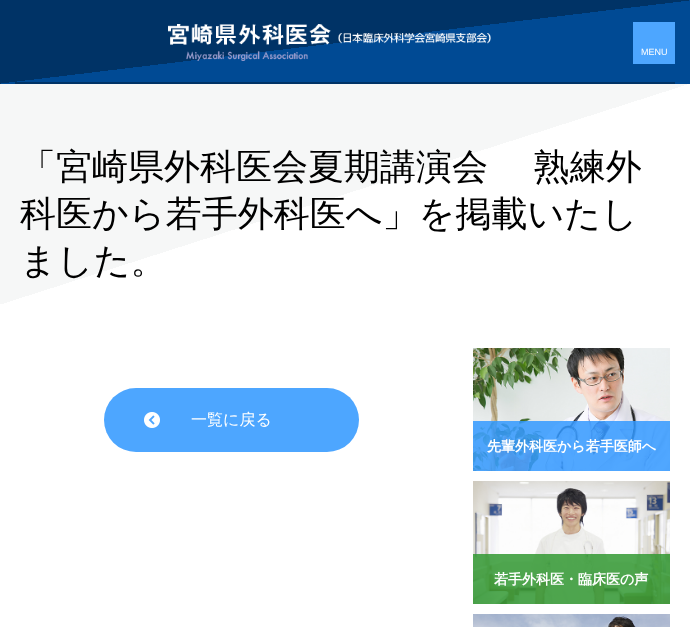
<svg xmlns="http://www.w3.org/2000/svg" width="690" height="627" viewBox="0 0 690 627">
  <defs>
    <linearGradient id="g1" gradientUnits="userSpaceOnUse" x1="335" y1="-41" x2="355" y2="125"><stop offset="0.5" stop-color="#036"/><stop offset="0.5" stop-color="#004a94"/></linearGradient>
    <linearGradient id="g2" gradientUnits="userSpaceOnUse" x1="281" y1="-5.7" x2="409" y2="394"><stop offset="0.5" stop-color="#f6f7f7"/><stop offset="0.5" stop-color="#fff"/></linearGradient>
  </defs>
  <rect width="100%" height="100%" fill="#fff"/>
  <path d="M0 0h690v84H0z" fill="url(#g1)"/>
  <image x="168" y="24" width="323" height="37" href="img/1.png"/>
  <path d="M633 22h42v42H633z" fill="#4da6ff"/>
  <path d="M15 82h660v2H15z" fill="#036"/>
  <path d="M0 84h687v220H0z" fill="url(#g2)"/>
  <rect x="104" y="388" width="255" height="64" rx="32" fill="#4da6ff"/>
  <image x="144" y="412" width="16" height="16" href="img/2.png"/>
  <image x="473" y="348" width="197" height="123" href="img/3.png"/>
  <path d="M473 421h197v50H473z" fill="#3399ffd9"/>
  <image x="473" y="481" width="197" height="123" href="img/4.png"/>
  <path d="M473 554h197v50H473z" fill="#339933d9"/>
  <image x="473" y="614" width="197" height="13" href="img/5.png"/>
  <text x="641" y="55" font-family="Liberation Sans" font-size="9" fill="#fff">MENU</text>
  <g font-family="WenQuanYi Zen Hei" font-size="36" font-weight="500" fill="#000">
    <text x="20" y="179" word-spacing="-1">「宮崎県外科医会夏期講演会 　熟練外</text>
    <text x="20" y="226">科医から若手外科医へ」を掲載いたし</text>
    <text x="20" y="273">ました。</text>
  </g>
  <text x="191" y="425" font-family="WenQuanYi Zen Hei" font-size="16" font-weight="500" fill="#fff">一覧に戻る</text>
  <g font-family="WenQuanYi Zen Hei" font-size="14" font-weight="bold" fill="#fff">
    <text x="487" y="451">先輩外科医から若手医師へ</text>
    <text x="494" y="584">若手外科医・臨床医の声</text>
  </g>
</svg>
